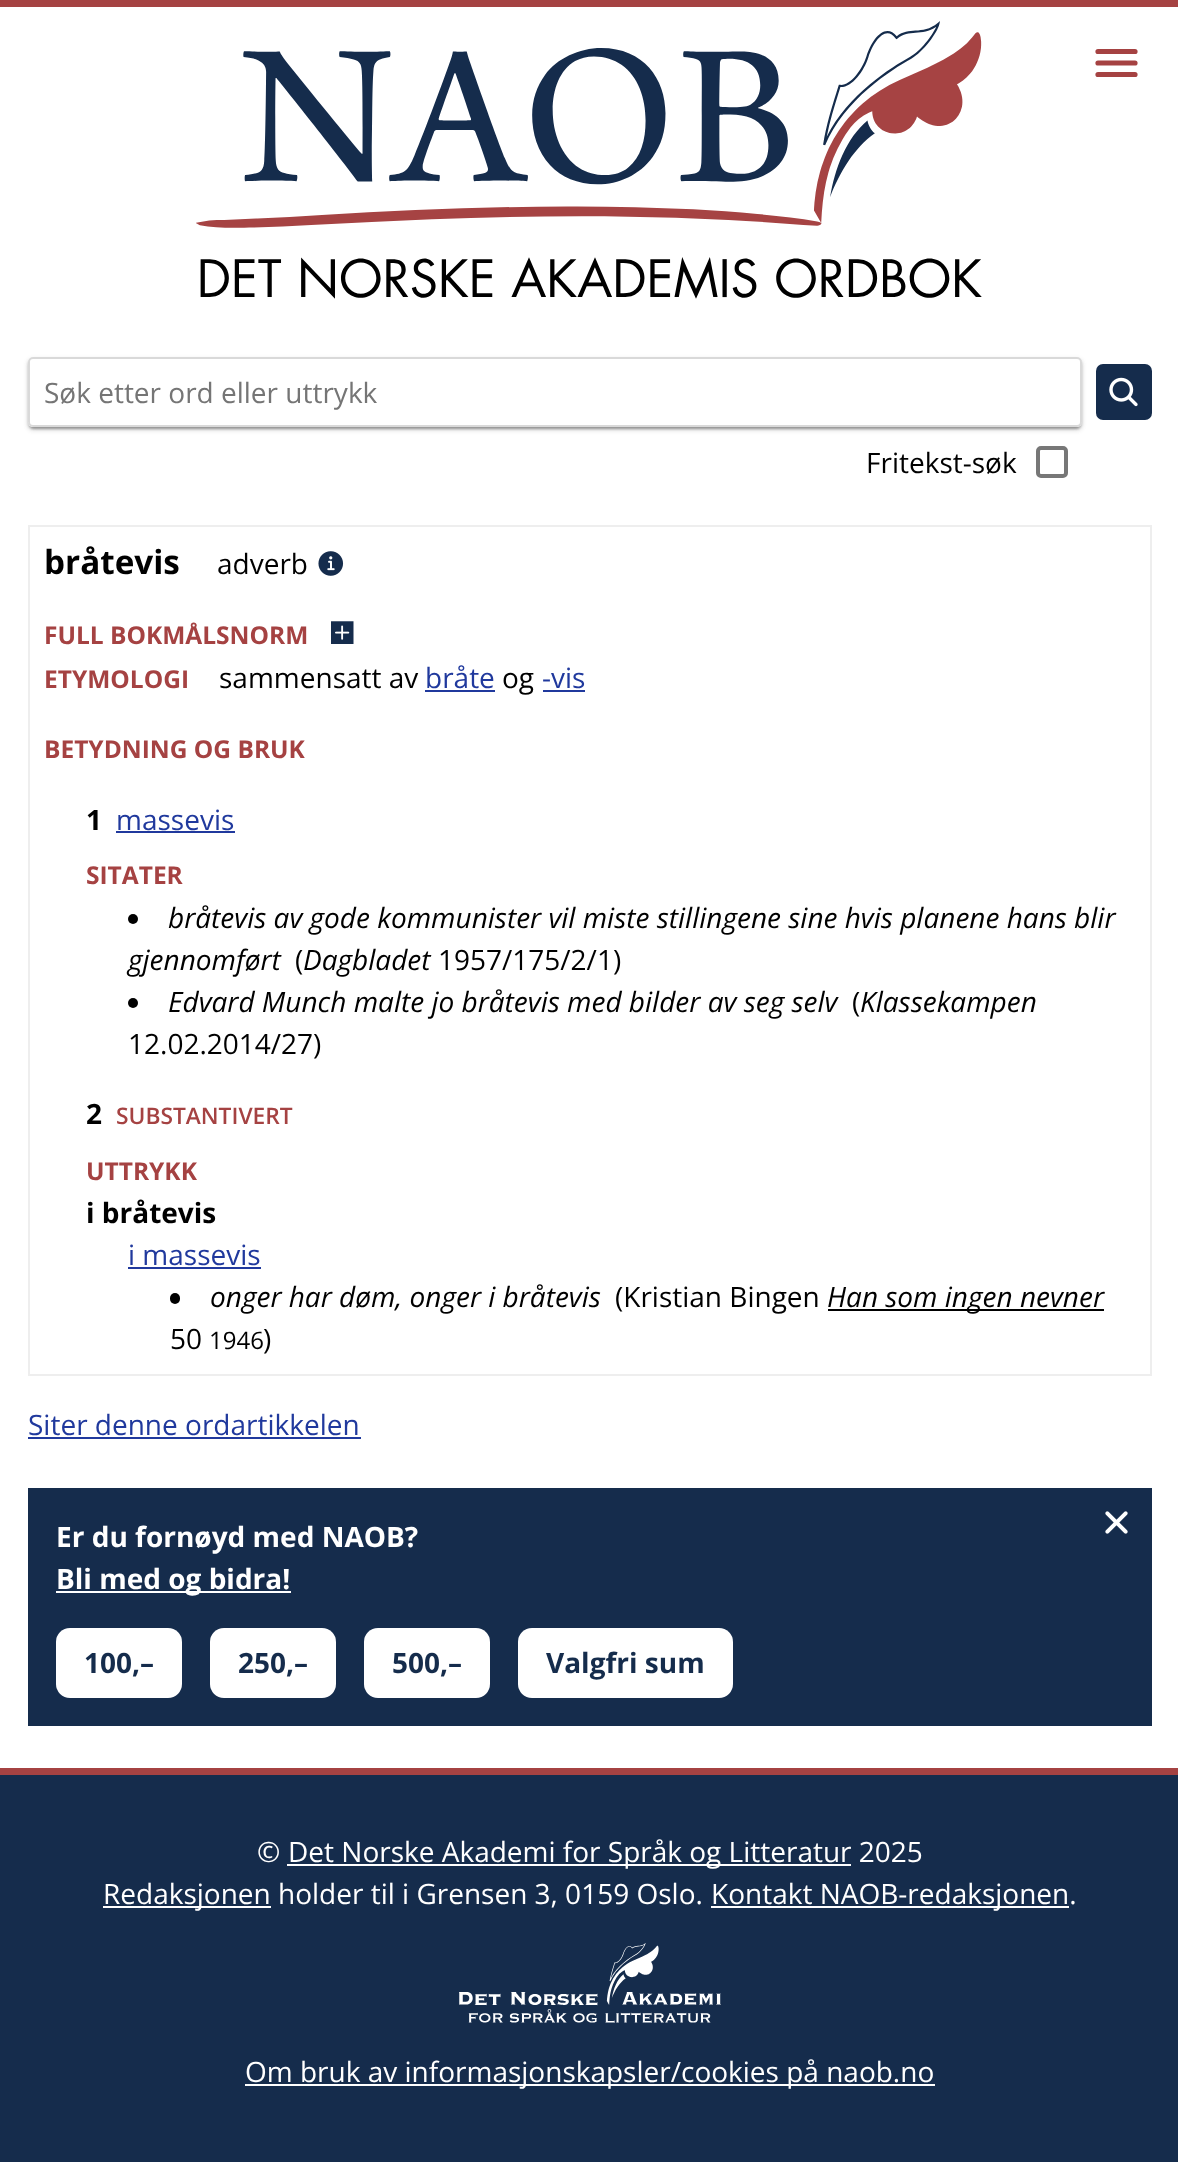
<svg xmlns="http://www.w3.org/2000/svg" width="1178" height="2162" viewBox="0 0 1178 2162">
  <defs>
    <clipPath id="clip1"><path d="M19 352H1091V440H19ZM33 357H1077C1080 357 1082 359 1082 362V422C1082 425 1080 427 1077 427H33C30 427 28 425 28 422V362C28 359 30 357 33 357Z" clip-rule="evenodd"/></clipPath>
    <clipPath id="clip2"><path d="M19 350H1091V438H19ZM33 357H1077C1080 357 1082 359 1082 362V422C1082 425 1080 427 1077 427H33C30 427 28 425 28 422V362C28 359 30 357 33 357Z" clip-rule="evenodd"/></clipPath>
    <clipPath id="clip3"><path d="M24 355H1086V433H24ZM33 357H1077C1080 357 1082 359 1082 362V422C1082 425 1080 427 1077 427H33C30 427 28 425 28 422V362C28 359 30 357 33 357Z" clip-rule="evenodd"/></clipPath>
    <clipPath id="clip4"><path d="M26 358H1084V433H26ZM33 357H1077C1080 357 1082 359 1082 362V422C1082 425 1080 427 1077 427H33C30 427 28 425 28 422V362C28 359 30 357 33 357Z" clip-rule="evenodd"/></clipPath>
  </defs>
  <rect width="100%" height="100%" fill="#fff"/>
  <path d="M0 0h1178v7H0z" fill="#a54242"/>
  <path d="M1098 51.5H1135M1098 63H1135M1098 74.5H1135" fill="none" stroke="#a54242" stroke-width="5.2" stroke-linecap="round"/>
  <image x="196" y="21" width="786" height="278" href="img/1.png"/>
  <g clip-path="url(#clip1)">
    <rect x="28" y="361" width="1054" height="70" rx="5" fill="#0000000f" filter="blur(2.5px)"/>
  </g>
  <g clip-path="url(#clip2)">
    <rect x="28" y="359" width="1054" height="70" rx="5" fill="#0000001f" filter="blur(2.5px)"/>
  </g>
  <g clip-path="url(#clip3)">
    <rect x="28" y="359" width="1054" height="70" rx="5" fill="#00000024" filter="blur(1px)"/>
  </g>
  <g clip-path="url(#clip4)">
    <rect x="30" y="362" width="1050" height="67" rx="4" fill="#00000033" filter="blur(1px)"/>
  </g>
  <rect x="29" y="358" width="1052" height="68" rx="4" fill="none" stroke="#00000026" stroke-width="2"/>
  <rect x="1096" y="364" width="56" height="56" rx="7" fill="#152c4c"/>
  <image x="1109" y="377" width="29" height="30" href="img/2.png"/>
  <rect x="1038" y="448" width="28" height="28" rx="3" fill="none" stroke="#777" stroke-width="4"/>
  <path d="M29 526h1122v849H29z" fill="none" stroke="#eee" stroke-width="2"/>
  <image x="318" y="551" width="26" height="25" href="img/3.png"/>
  <image x="331" y="621" width="23" height="23" href="img/4.png"/>
  <path d="M425 690h70v2H425z" fill="#20399d"/>
  <path d="M543 690h42v2H543z" fill="#20399d"/>
  <path d="M116 831h119v2H116z" fill="#20399d"/>
  <circle cx="133" cy="919" r="5" fill="#000"/>
  <circle cx="133" cy="1003" r="5" fill="#000"/>
  <path d="M128 1267h133v2H128z" fill="#20399d"/>
  <rect x="170" y="1293" width="10" height="11" rx="5" fill="#000"/>
  <path d="M828 1309h276v2H828z" fill="#000"/>
  <path d="M28 1437h333v2H28z" fill="#20399d"/>
  <path d="M28 1488h1124v238H28z" fill="#152c4c"/>
  <image x="1105" y="1511" width="23" height="23" href="img/5.png"/>
  <path d="M56 1591h235v2H56z" fill="#fff"/>
  <rect x="56" y="1628" width="126" height="70" rx="14" fill="#fff"/>
  <rect x="210" y="1628" width="126" height="70" rx="14" fill="#fff"/>
  <rect x="364" y="1628" width="126" height="70" rx="14" fill="#fff"/>
  <rect x="518" y="1628" width="215" height="70" rx="14" fill="#fff"/>
  <path d="M0 1775h1178v387H0z" fill="#152c4c"/>
  <path d="M0 1768h1178v7H0z" fill="#a54242"/>
  <path d="M287 1864h564v2H287z" fill="#fff"/>
  <path d="M103 1906h168v2H103z" fill="#fff"/>
  <path d="M711 1906h358v2H711z" fill="#fff"/>
  <image x="459" y="1943" width="262" height="80" href="img/6.png"/>
  <path d="M245 2084h690v2H245z" fill="#fff"/>
  <text x="44" y="403" font-family="Open Sans" font-size="28" fill="#757575">Søk etter ord eller uttrykk</text>
  <text x="866" y="473" font-family="Open Sans" font-size="28" fill="#000">Fritekst-søk</text>
  <text x="44" y="574" font-family="Open Sans" font-size="33.25" font-weight="bold" fill="#000">bråtevis</text>
  <text x="217" y="574" font-family="Open Sans" font-size="28" fill="#000">adverb</text>
  <g font-family="Open Sans" font-size="24.5" font-weight="bold" fill="#a54242">
    <text x="44" y="644">FULL BOKMÅLSNORM</text>
    <text x="44" y="688">ETYMOLOGI</text>
  </g>
  <text x="219" y="688" font-family="Open Sans" font-size="28" fill="#000">sammensatt av</text>
  <text x="425" y="688" font-family="Open Sans" font-size="28" fill="#20399d">bråte</text>
  <text x="502" y="688" font-family="Open Sans" font-size="28" fill="#000">og</text>
  <text x="542" y="688" font-family="Open Sans" font-size="28" fill="#20399d">-vis</text>
  <text x="44" y="758" font-family="Open Sans" font-size="24.5" font-weight="bold" fill="#a54242">BETYDNING OG BRUK</text>
  <text x="86" y="830" font-family="Open Sans" font-size="28" font-weight="bold" fill="#000">1</text>
  <text x="116" y="830" font-family="Open Sans" font-size="28" fill="#20399d">massevis</text>
  <text x="86" y="884" font-family="Open Sans" font-size="24.5" font-weight="bold" fill="#a54242">SITATER</text>
  <g font-family="Open Sans" font-size="28" font-style="italic" fill="#000">
    <text x="168" y="928">bråtevis av gode kommunister vil miste stillingene sine hvis planene hans blir</text>
    <text x="128" y="970">gjennomført</text>
  </g>
  <text x="295" y="970" font-family="Open Sans" font-size="28" fill="#000">(</text>
  <text x="303" y="970" font-family="Open Sans" font-size="28" font-style="italic" fill="#000">Dagbladet</text>
  <text x="438" y="970" font-family="Open Sans" font-size="28" fill="#000">1957/175/2/1)</text>
  <text x="168" y="1012" font-family="Open Sans" font-size="28" font-style="italic" fill="#000">Edvard Munch malte jo bråtevis med bilder av seg selv</text>
  <text x="852" y="1012" font-family="Open Sans" font-size="28" fill="#000">(</text>
  <text x="860" y="1012" font-family="Open Sans" font-size="28" font-style="italic" fill="#000">Klassekampen</text>
  <text x="128" y="1054" font-family="Open Sans" font-size="28" fill="#000">12.02.2014/27)</text>
  <text x="86" y="1124" font-family="Open Sans" font-size="28" font-weight="bold" fill="#000">2</text>
  <text x="116" y="1124" font-family="Open Sans" font-size="22.75" font-weight="600" fill="#a54242">SUBSTANTIVERT</text>
  <text x="86" y="1180" font-family="Open Sans" font-size="24.5" font-weight="bold" fill="#a54242">UTTRYKK</text>
  <text x="86" y="1223" font-family="Open Sans" font-size="28" font-weight="bold" fill="#000">i bråtevis</text>
  <text x="128" y="1265" font-family="Open Sans" font-size="28" fill="#20399d">i massevis</text>
  <text x="210" y="1307" font-family="Open Sans" font-size="28" font-style="italic" fill="#000">onger har døm, onger i bråtevis</text>
  <text x="615" y="1307" font-family="Open Sans" font-size="28" fill="#000">(Kristian Bingen</text>
  <text x="827" y="1307" font-family="Open Sans" font-size="28" font-style="italic" fill="#000">Han som ingen nevner</text>
  <text x="170" y="1349" font-family="Open Sans" font-size="28" fill="#000">50</text>
  <text x="209" y="1349" font-family="Open Sans" font-size="24" fill="#000">1946</text>
  <text x="263" y="1349" font-family="Open Sans" font-size="28" fill="#000">)</text>
  <text x="28" y="1435" font-family="Open Sans" font-size="28" fill="#20399d">Siter denne ordartikkelen</text>
  <g font-family="Open Sans" font-size="28" font-weight="bold" fill="#fff">
    <text x="56" y="1547">Er du fornøyd med NAOB?</text>
    <text x="56" y="1589">Bli med og bidra!</text>
  </g>
  <g font-family="Open Sans" font-size="28" font-weight="bold" fill="#152c4c">
    <text x="84" y="1673">100,–</text>
    <text x="238" y="1673">250,–</text>
    <text x="392" y="1673">500,–</text>
    <text x="546" y="1673">Valgfri sum</text>
  </g>
  <g font-family="Open Sans" font-size="28" fill="#fff">
    <text x="257" y="1862">©</text>
    <text x="288" y="1862">Det Norske Akademi for Språk og Litteratur 2025</text>
    <text x="103" y="1904">Redaksjonen holder til i Grensen 3, 0159 Oslo.</text>
    <text x="711" y="1904">Kontakt NAOB-redaksjonen.</text>
    <text x="245" y="2082">Om bruk av informasjonskapsler/cookies på naob.no</text>
  </g>
</svg>
